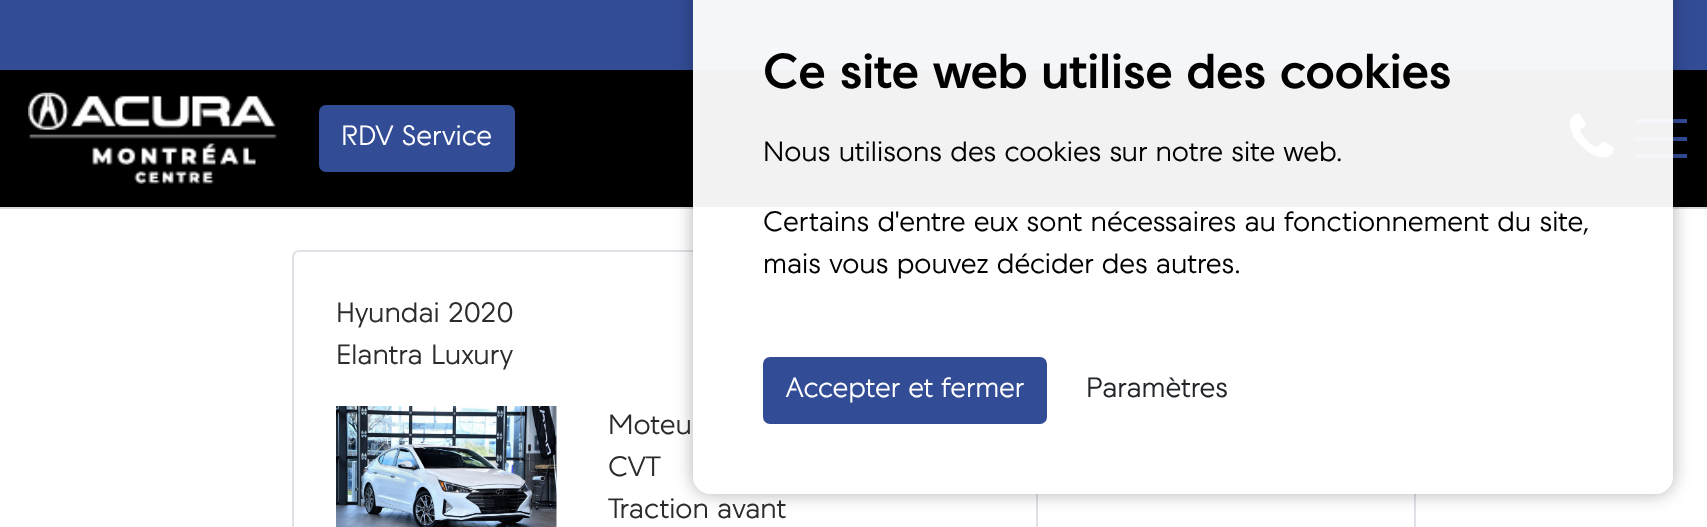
<svg xmlns="http://www.w3.org/2000/svg" width="1707" height="527" viewBox="0 0 1707 527">
  <defs>
    <clipPath id="clip1"><path d="M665 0H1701V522H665ZM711-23H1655C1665-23 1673-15 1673-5V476C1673 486 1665 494 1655 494H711C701 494 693 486 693 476V-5C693-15 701-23 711-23Z" clip-rule="evenodd"/></clipPath>
  </defs>
  <rect width="100%" height="100%" fill="#fff"/>
  <path d="M0 0h1707v70H0z" fill="#334c96"/>
  <path d="M0 70h1707v137H0z" fill="#000"/>
  <path d="M0 207h1707v2H0z" fill="#dadada"/>
  <image x="28" y="92" width="249" height="92" href="img/1.png"/>
  <rect x="320" y="106" width="194" height="65" rx="6" fill="#334c96" stroke="#334c96" stroke-width="2"/>
  <image x="1569" y="113" width="45" height="45" href="img/2.png"/>
  <path d="M1635 119h52v4H1635z" fill="#334c96"/>
  <path d="M1635 137h52v4H1635z" fill="#334c96"/>
  <path d="M1635 154h52v4H1635z" fill="#334c96"/>
  <rect x="293" y="251" width="1122" height="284" rx="6" fill="none" stroke="#dee2e6" stroke-width="2"/>
  <path d="M1036 424h2v103H1036z" fill="#dee2e6"/>
  <g clip-path="url(#clip1)">
    <rect x="693" y="-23" width="980" height="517" rx="18" fill="#0000004d" filter="blur(9px)"/>
  </g>
  <rect x="693" y="-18" width="980" height="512" rx="18" fill="#fffffff2"/>
  <rect x="764" y="358" width="282" height="65" rx="6" fill="#334c96" stroke="#334c96" stroke-width="2"/>
  <image x="336" y="406" width="221" height="121" href="img/3.png"/>
  <text x="341" y="145" font-family="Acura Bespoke" font-size="28" fill="#fff">RDV Service</text>
  <text x="763" y="88" font-family="Acura Bespoke" font-size="49" font-weight="bold" fill="#000">Ce site web utilise des cookies</text>
  <g font-family="Acura Bespoke" font-size="28" fill="#000">
    <text x="763" y="161">Nous utilisons des cookies sur notre site web.</text>
    <text x="763" y="231">Certains d'entre eux sont nécessaires au fonctionnement du site,</text>
    <text x="763" y="273">mais vous pouvez décider des autres.</text>
  </g>
  <text x="786" y="397" font-family="Acura Bespoke" font-size="28" fill="#fff">Accepter et fermer</text>
  <text x="1086" y="397" font-family="Acura Bespoke" font-size="28" fill="#212529">Paramètres</text>
  <g font-family="Acura Bespoke" font-size="28" fill="#2c2c2c">
    <text x="336" y="322">Hyundai 2020</text>
    <text x="336" y="364">Elantra Luxury</text>
    <text x="608" y="434">Moteu</text>
    <text x="608" y="476">CVT</text>
    <text x="608" y="518">Traction avant</text>
  </g>
</svg>
